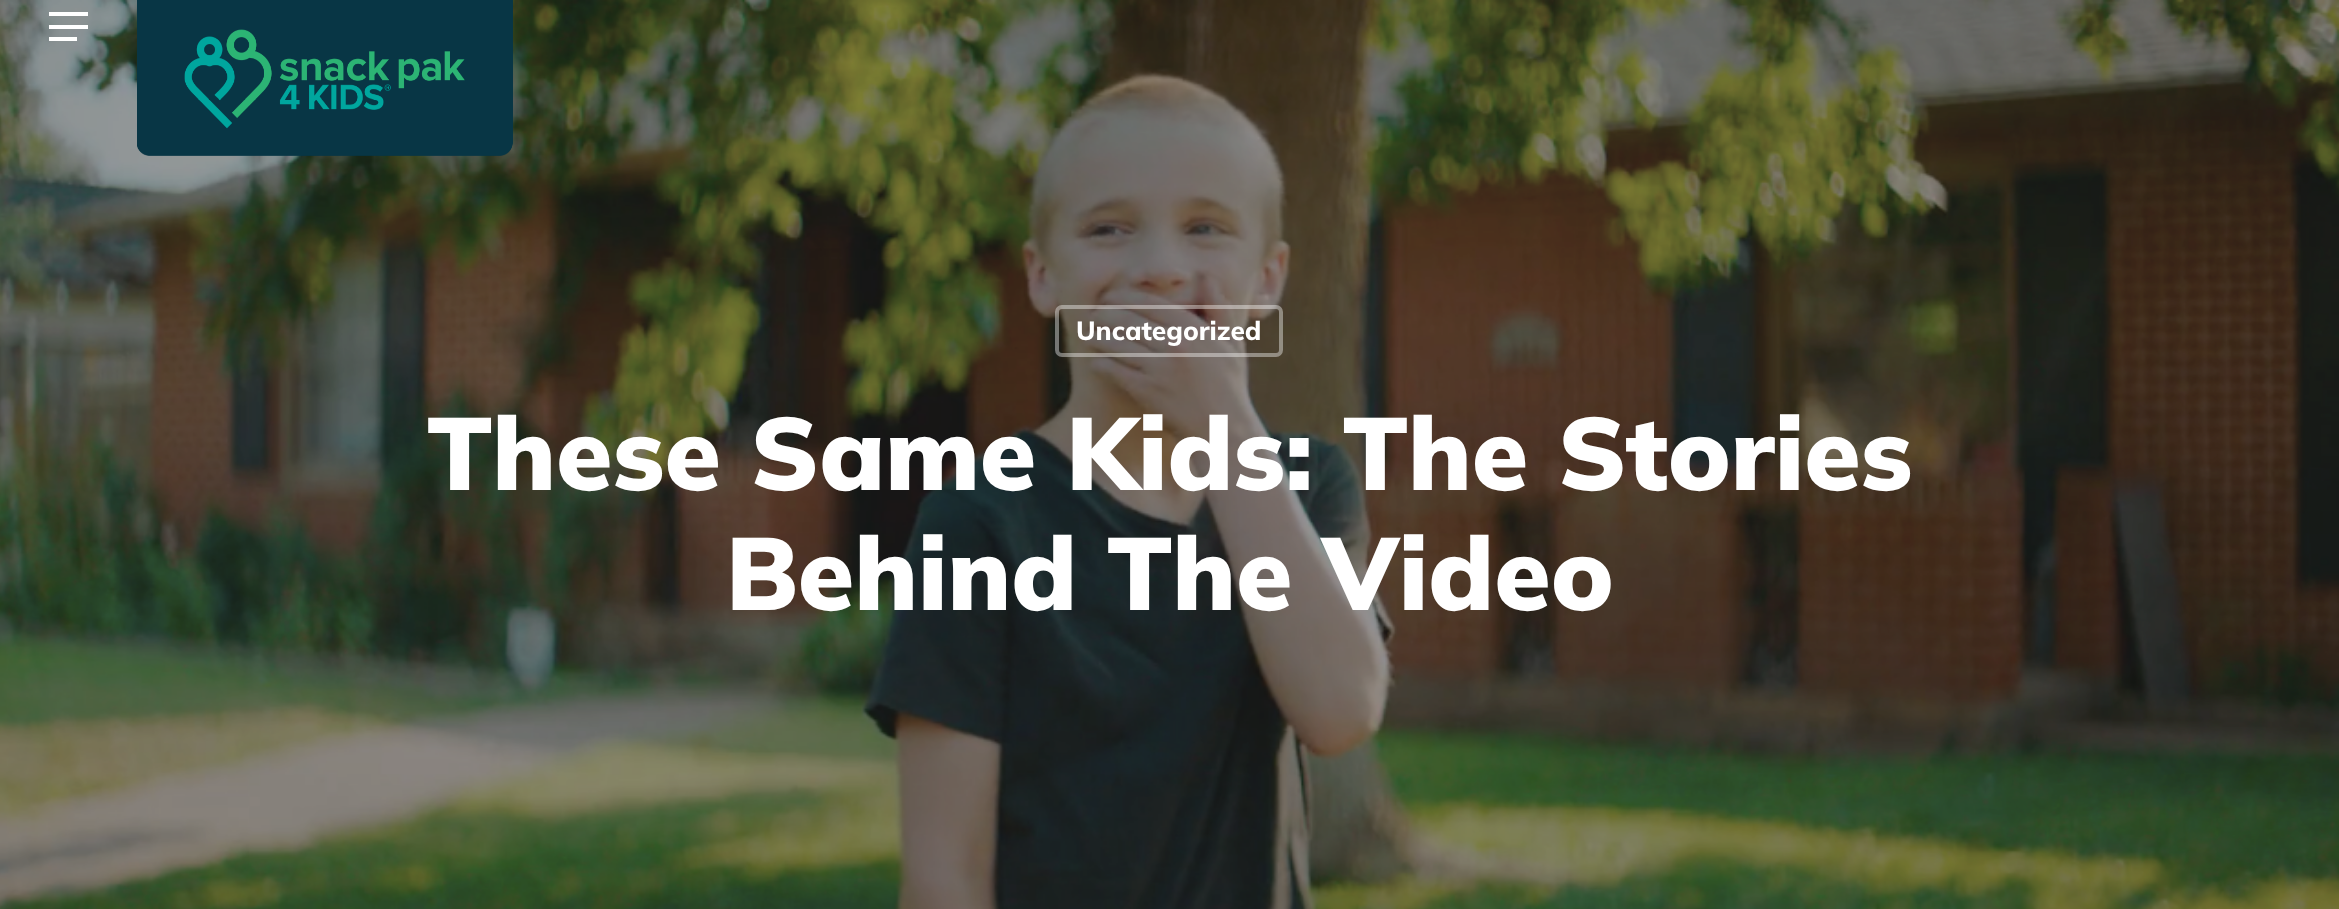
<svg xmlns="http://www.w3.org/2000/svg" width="2339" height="909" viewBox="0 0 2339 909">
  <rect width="100%" height="100%" fill="#fff"/>
  <image x="0" y="0" width="2339" height="909" href="img/2.png"/>
  <path d="M49 12h39v4H49z" fill="#fff"/>
  <path d="M49 37h28v4H49z" fill="#fff"/>
  <path d="M49 25h39v4H49z" fill="#fff"/>
  <image x="137" y="0" width="376" height="156" href="img/1.png"/>
  <rect x="1057" y="307" width="224" height="48" rx="5" fill="none" stroke="#ffffff66" stroke-width="4"/>
  <text x="1076" y="340" font-family="Mulish" font-size="26.25" font-weight="800" fill="#fff">Uncategorized</text>
  <g font-family="Mulish" font-size="102.4" font-weight="900" fill="#fff">
    <text x="427" y="490">These Same Kids: The Stories</text>
    <text x="726" y="610">Behind The Video</text>
  </g>
</svg>
